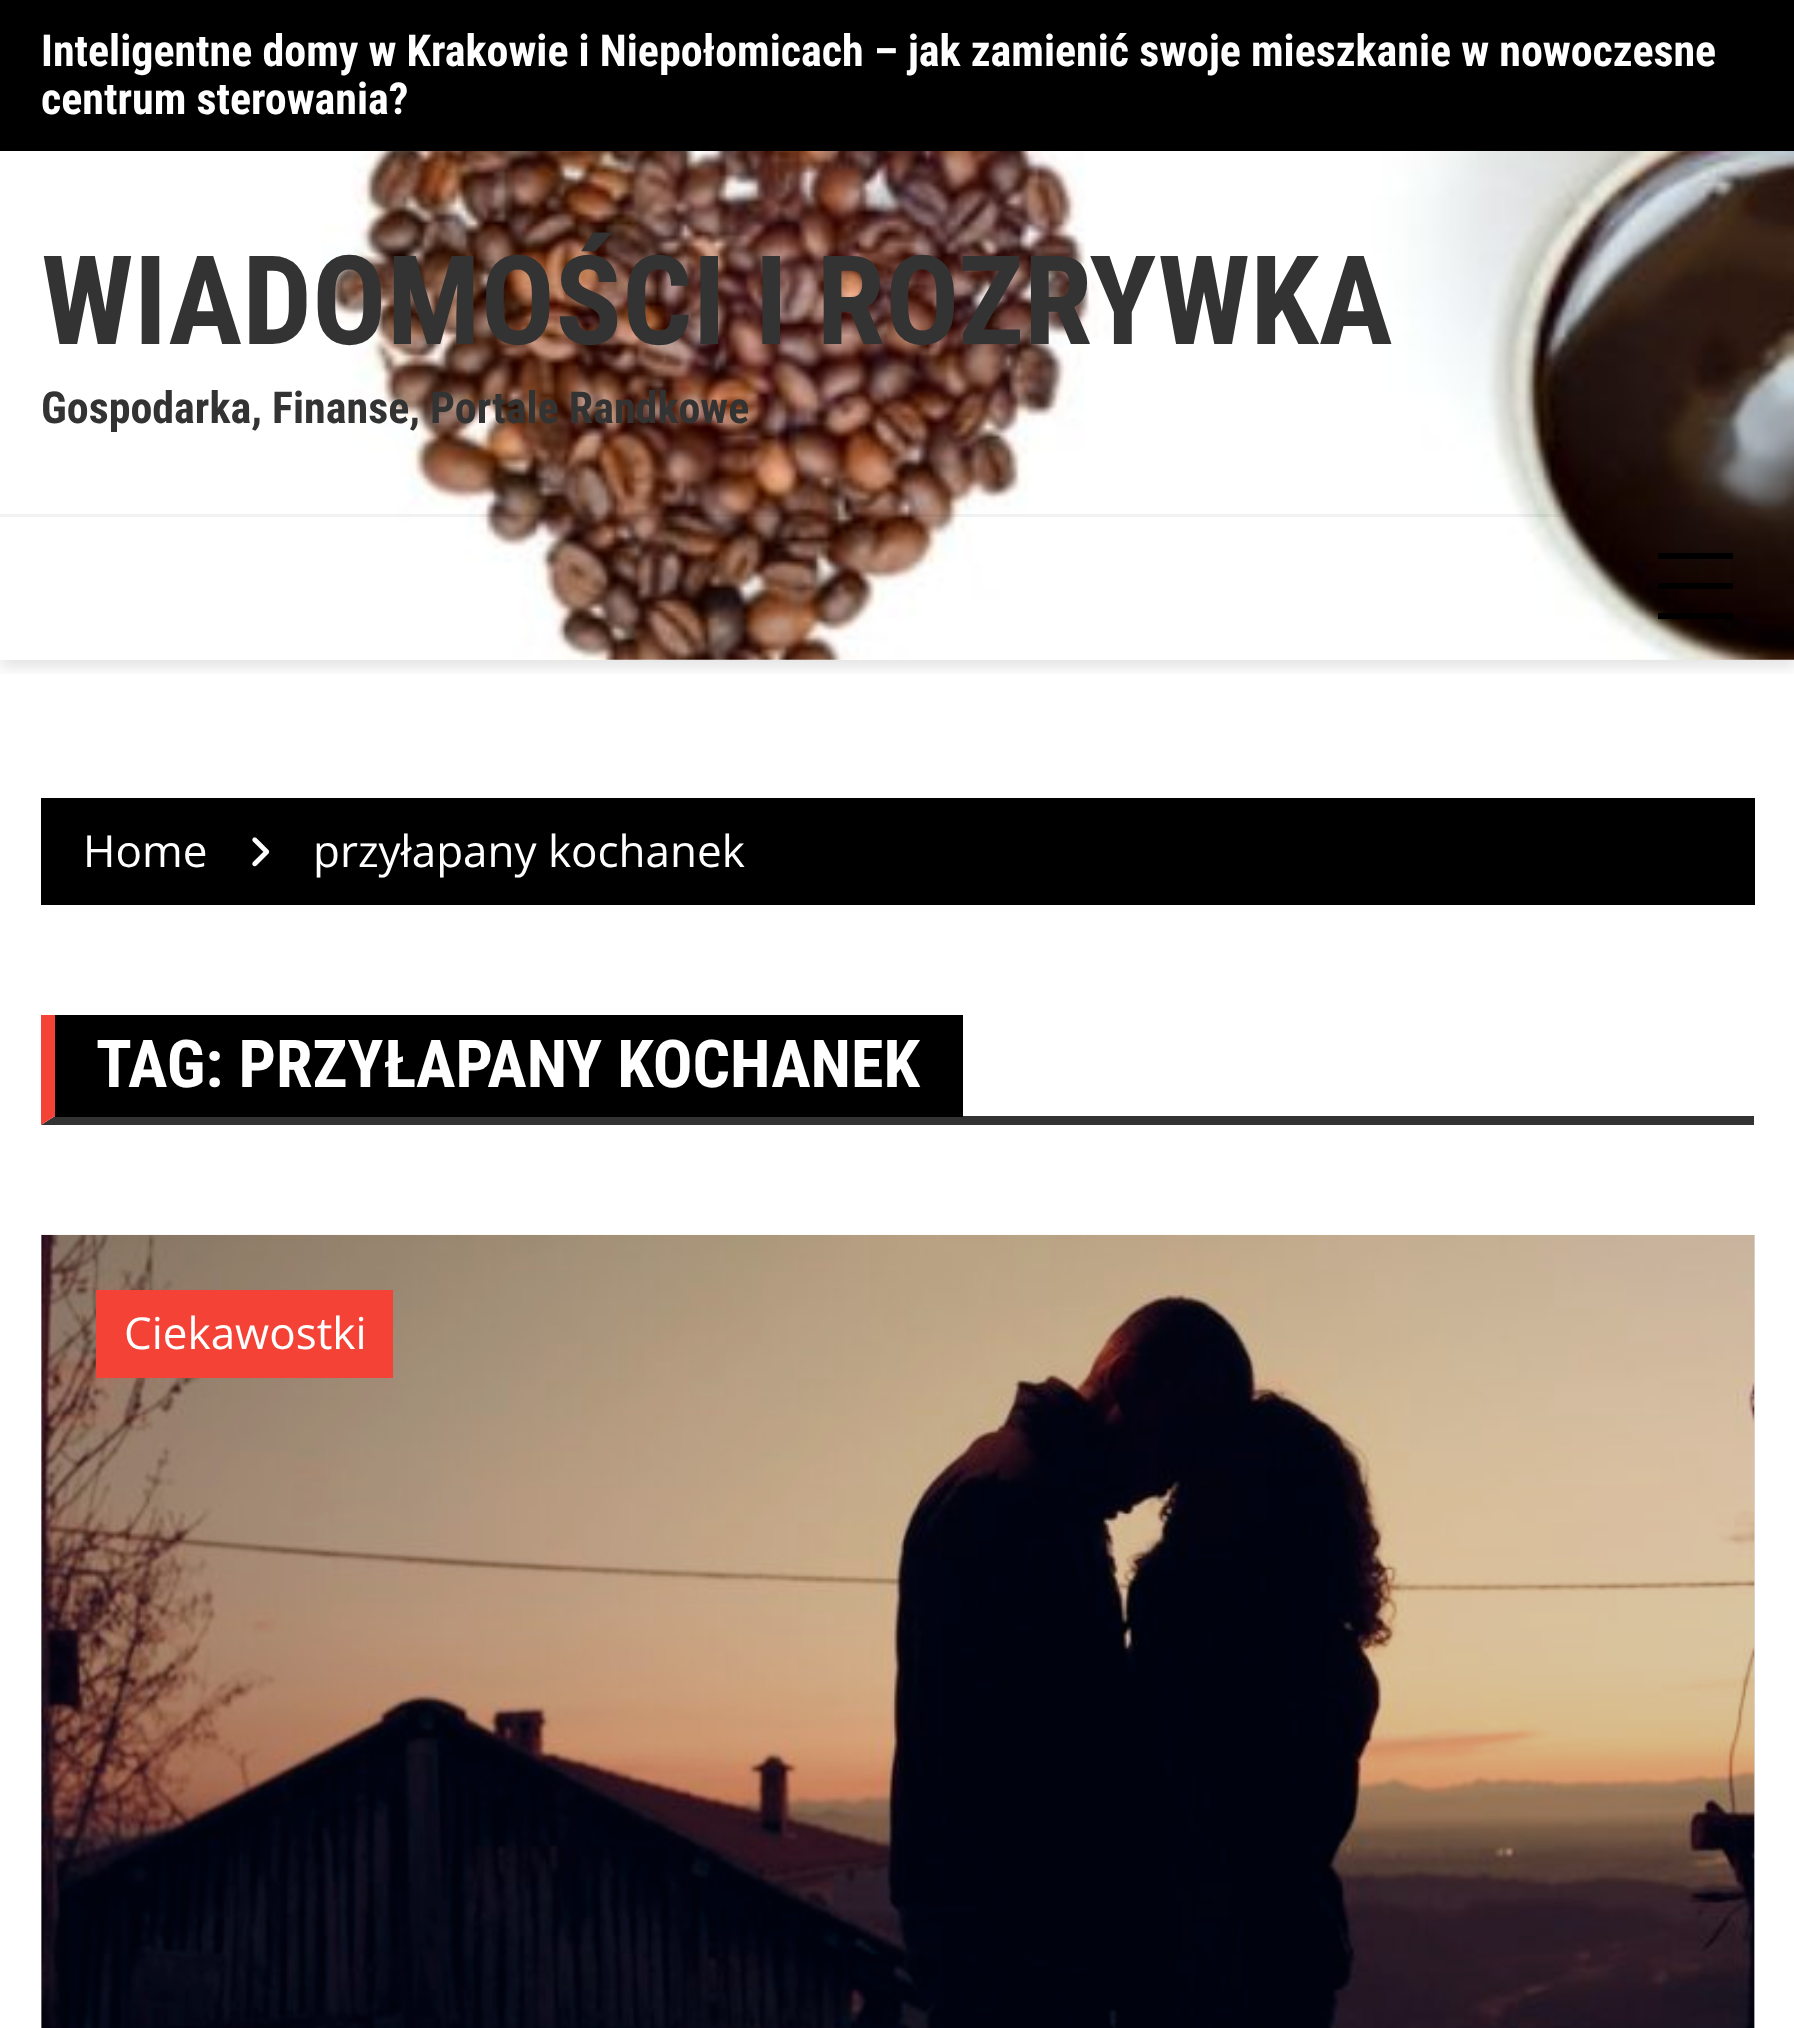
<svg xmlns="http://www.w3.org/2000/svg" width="1794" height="2028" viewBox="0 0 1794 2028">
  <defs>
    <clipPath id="clip1"><path d="M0 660h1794v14H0z"/></clipPath>
  </defs>
  <rect width="100%" height="100%" fill="#fff"/>
  <path d="M41 1235h1714v793H41z" fill="#d9d9d9"/>
  <image x="322" y="151" width="1472" height="509" href="img/1.png"/>
  <path d="M0 0h1794v151H0z" fill="#000"/>
  <g clip-path="url(#clip1)">
    <path d="M0 523h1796v145H0z" fill="#0000001a" filter="blur(7px)"/>
  </g>
  <path d="M0 514h1569v3H0z" fill="#0000000d"/>
  <path d="M1658 553h75v6H1658z" fill="#000"/>
  <path d="M1658 583h75v6H1658z" fill="#000"/>
  <path d="M1658 613h75v6H1658z" fill="#000"/>
  <path d="M41 798h1714v107H41z" fill="#000"/>
  <image x="252" y="837" width="18" height="30" href="img/2.png"/>
  <path d="M1754 1125H41L55 1116H1754Z" fill="#333"/>
  <path d="M41 1125V1015H55V1116Z" fill="#f44336"/>
  <path d="M55 1015h908v102H55z" fill="#000"/>
  <image x="41" y="1234" width="1714" height="794" href="img/3.png"/>
  <path d="M96 1290h297v88H96z" fill="#f44336"/>
  <g font-family="Roboto Condensed" font-size="44" font-weight="bold" fill="#fff">
    <text x="41" y="66">Inteligentne domy w Krakowie i Niepołomicach – jak zamienić swoje mieszkanie w nowoczesne</text>
    <text x="41" y="114">centrum sterowania?</text>
  </g>
  <text x="41" y="344" font-family="Roboto Condensed" font-size="123.75" font-weight="bold" fill="#333">WIADOMOŚCI I ROZRYWKA</text>
  <text x="41" y="423" font-family="Roboto Condensed" font-size="44" font-weight="bold" fill="#333">Gospodarka, Finanse, Portale Randkowe</text>
  <g font-family="Open Sans" font-size="44" fill="#fff">
    <text x="83" y="867">Home</text>
    <text x="313" y="867">przyłapany kochanek</text>
  </g>
  <text x="96" y="1087" font-family="Roboto Condensed" font-size="66" font-weight="bold" fill="#fff">TAG: PRZYŁAPANY KOCHANEK</text>
  <text x="124" y="1349" font-family="Open Sans" font-size="44" fill="#fff">Ciekawostki</text>
</svg>
